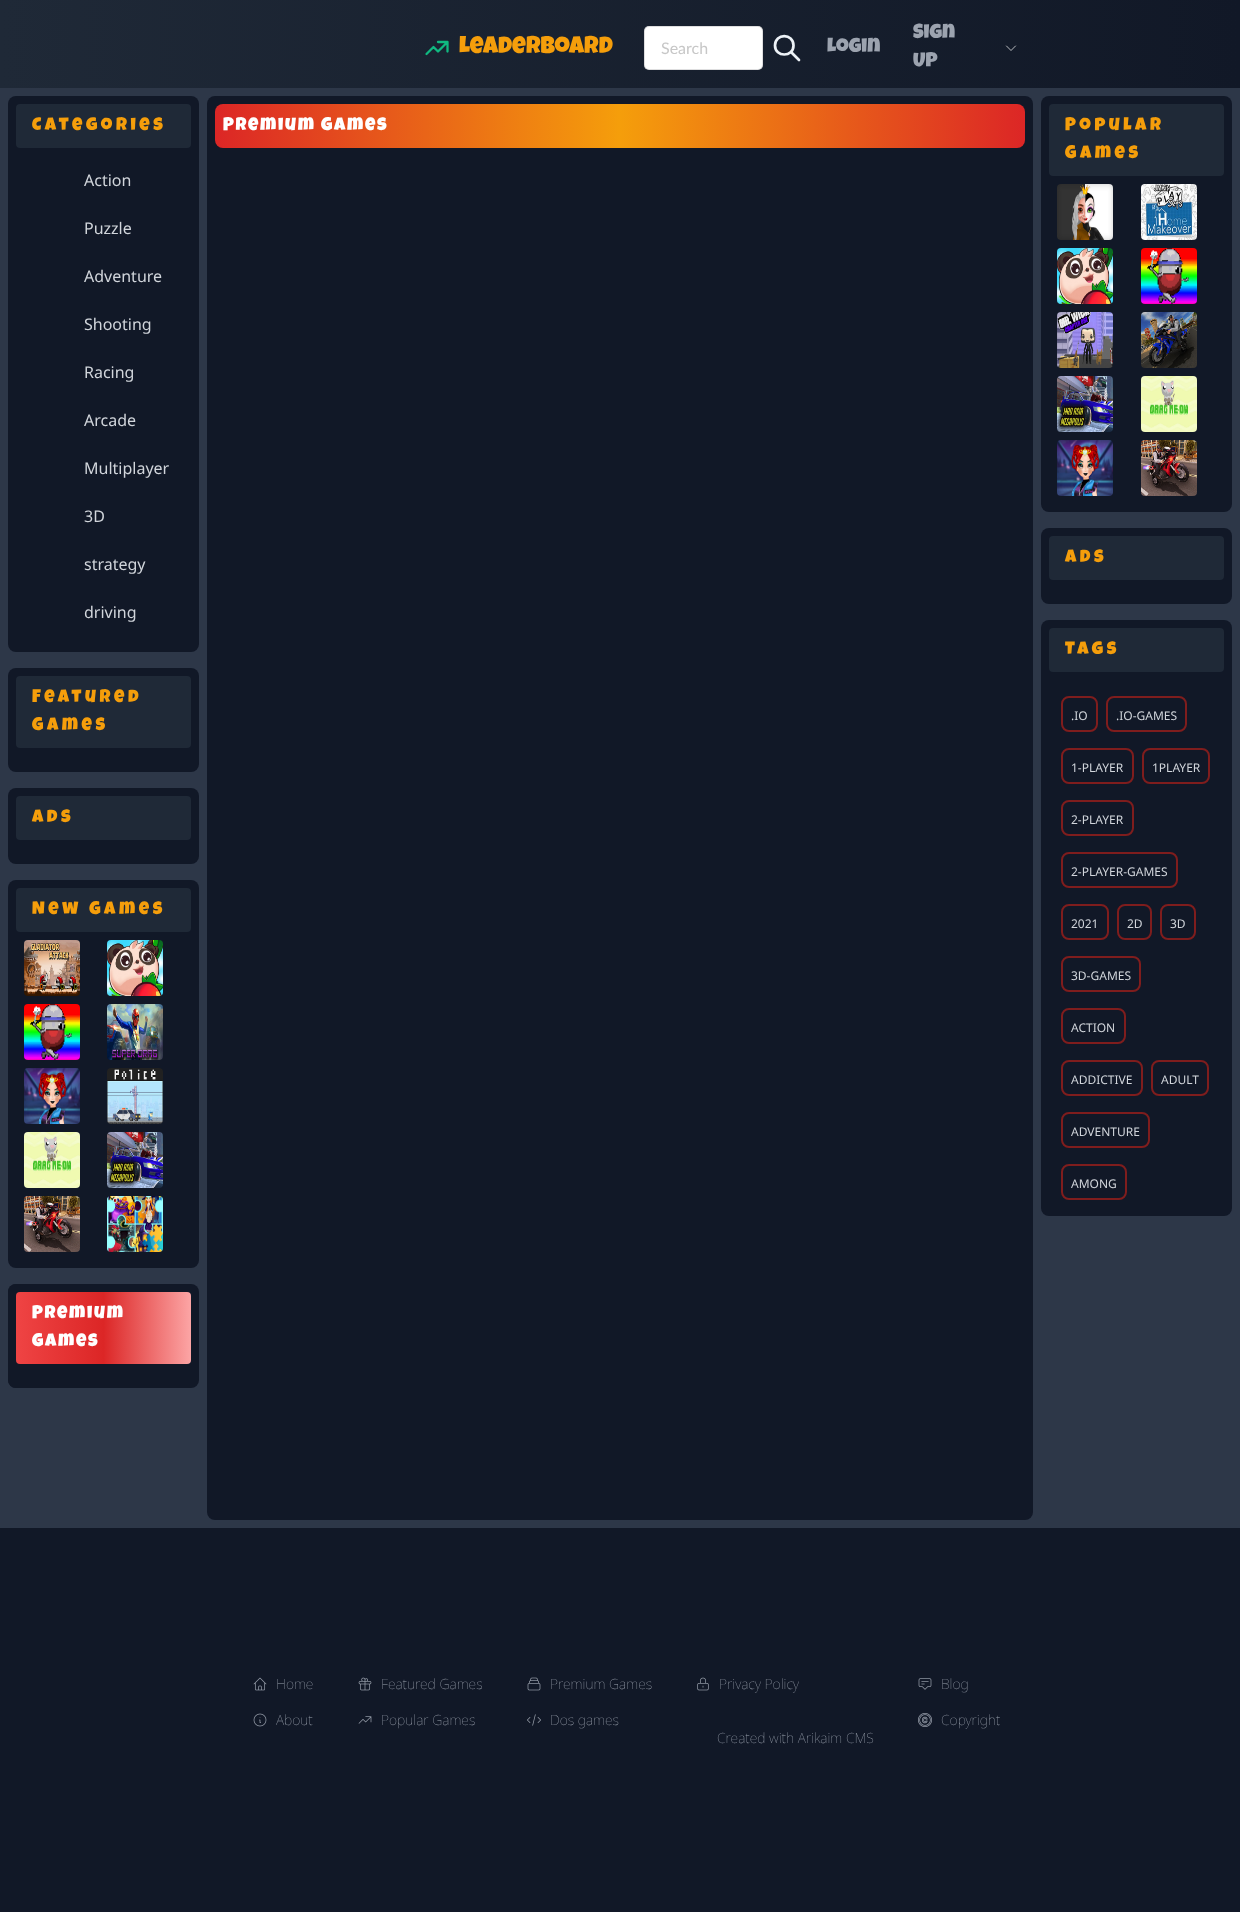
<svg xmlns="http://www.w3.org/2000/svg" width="1240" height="1912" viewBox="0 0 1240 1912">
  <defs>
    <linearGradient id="g1" gradientUnits="userSpaceOnUse" x1="0" y1="44" x2="1240" y2="44"><stop offset="0" stop-color="#1f2937"/><stop offset="1" stop-color="#111827"/></linearGradient>
    <linearGradient id="g2" gradientUnits="userSpaceOnUse" x1="8" y1="1336" x2="199" y2="1336"><stop offset="0" stop-color="#111827"/><stop offset="1" stop-color="#111827" stop-opacity="0"/></linearGradient>
    <linearGradient id="g3" gradientUnits="userSpaceOnUse" x1="16" y1="1328" x2="191" y2="1328"><stop offset="0" stop-color="#ef4444"/><stop offset="0.5" stop-color="#dc2626"/><stop offset="1" stop-color="#fca5a5"/></linearGradient>
    <linearGradient id="g4" gradientUnits="userSpaceOnUse" x1="215" y1="126" x2="1025" y2="126"><stop offset="0" stop-color="#dc2626"/><stop offset="0.5" stop-color="#f59e0b"/><stop offset="1" stop-color="#dc2626"/></linearGradient>
  </defs>
  <rect width="100%" height="100%" fill="#2d3748"/>
  <path d="M0 0h1240v88H0z" fill="url(#g1)"/>
  <path d="M438 42H447.5M447.5 42V51.5M447.5 42L438 51.5L433.5 47L426.5 54" fill="none" stroke="#10b981" stroke-width="2.3" stroke-linecap="round" stroke-linejoin="round"/>
  <rect x="644" y="26" width="119" height="44" rx="5" fill="#fff"/>
  <rect x="644.5" y="26.5" width="118" height="43" rx="4.5" fill="none" stroke="#22242626"/>
  <path d="M799 60L791 52M793.5 45.5C793.5 57.5 775 57.5 775 45.5C775 33 793.5 33 793.5 45.5Z" fill="none" stroke="#edf2f7" stroke-width="2.7" stroke-linecap="round" stroke-linejoin="round"/>
  <path d="M1015.5 46L1011 50.5L1006.5 46" fill="none" stroke="#fff" stroke-width="0.7" stroke-linecap="round" stroke-linejoin="round"/>
  <rect x="8" y="96" width="191" height="556" rx="8" fill="#111827"/>
  <rect x="16" y="104" width="175" height="44" rx="4" fill="#1f2937"/>
  <rect x="8" y="668" width="191" height="104" rx="8" fill="#111827"/>
  <rect x="16" y="676" width="175" height="72" rx="4" fill="#1f2937"/>
  <rect x="8" y="788" width="191" height="76" rx="8" fill="#111827"/>
  <rect x="16" y="796" width="175" height="44" rx="4" fill="#1f2937"/>
  <rect x="8" y="880" width="191" height="388" rx="8" fill="#111827"/>
  <rect x="16" y="888" width="175" height="44" rx="4" fill="#1f2937"/>
  <image x="24" y="940" width="56" height="56" href="img/1.png"/>
  <image x="107" y="940" width="56" height="56" href="img/2.png"/>
  <image x="24" y="1004" width="56" height="56" href="img/3.png"/>
  <image x="107" y="1004" width="56" height="56" href="img/4.png"/>
  <image x="24" y="1068" width="56" height="56" href="img/5.png"/>
  <image x="107" y="1068" width="56" height="56" href="img/6.png"/>
  <image x="24" y="1132" width="56" height="56" href="img/7.png"/>
  <image x="107" y="1132" width="56" height="56" href="img/8.png"/>
  <image x="24" y="1196" width="56" height="56" href="img/9.png"/>
  <image x="107" y="1196" width="56" height="56" href="img/10.png"/>
  <rect x="8" y="1284" width="191" height="104" rx="8" fill="#111827"/>
  <rect x="8" y="1284" width="191" height="104" rx="8" fill="url(#g2)"/>
  <rect x="16" y="1292" width="175" height="72" rx="4" fill="url(#g3)"/>
  <rect x="207" y="96" width="826" height="1424" rx="8" fill="#111827"/>
  <rect x="215" y="104" width="810" height="44" rx="8" fill="url(#g4)"/>
  <rect x="1041" y="96" width="191" height="416" rx="8" fill="#111827"/>
  <rect x="1049" y="104" width="175" height="72" rx="4" fill="#1f2937"/>
  <image x="1057" y="184" width="56" height="56" href="img/11.png"/>
  <image x="1141" y="184" width="56" height="56" href="img/12.png"/>
  <image x="1057" y="248" width="56" height="56" href="img/13.png"/>
  <image x="1141" y="248" width="56" height="56" href="img/14.png"/>
  <image x="1057" y="312" width="56" height="56" href="img/15.png"/>
  <image x="1141" y="312" width="56" height="56" href="img/16.png"/>
  <image x="1057" y="376" width="56" height="56" href="img/17.png"/>
  <image x="1141" y="376" width="56" height="56" href="img/18.png"/>
  <image x="1057" y="440" width="56" height="56" href="img/19.png"/>
  <image x="1141" y="440" width="56" height="56" href="img/20.png"/>
  <rect x="1041" y="528" width="191" height="76" rx="8" fill="#111827"/>
  <rect x="1049" y="536" width="175" height="44" rx="4" fill="#1f2937"/>
  <rect x="1041" y="620" width="191" height="596" rx="8" fill="#111827"/>
  <rect x="1049" y="628" width="175" height="44" rx="4" fill="#1f2937"/>
  <rect x="1062" y="697" width="35" height="34" rx="7" fill="none" stroke="#7f1d1d" stroke-width="2"/>
  <rect x="1107" y="697" width="79" height="34" rx="7" fill="none" stroke="#7f1d1d" stroke-width="2"/>
  <rect x="1062" y="749" width="71" height="34" rx="7" fill="none" stroke="#7f1d1d" stroke-width="2"/>
  <rect x="1143" y="749" width="66" height="34" rx="7" fill="none" stroke="#7f1d1d" stroke-width="2"/>
  <rect x="1062" y="801" width="71" height="34" rx="7" fill="none" stroke="#7f1d1d" stroke-width="2"/>
  <rect x="1062" y="853" width="115" height="34" rx="7" fill="none" stroke="#7f1d1d" stroke-width="2"/>
  <rect x="1062" y="905" width="46" height="34" rx="7" fill="none" stroke="#7f1d1d" stroke-width="2"/>
  <rect x="1118" y="905" width="33" height="34" rx="7" fill="none" stroke="#7f1d1d" stroke-width="2"/>
  <rect x="1161" y="905" width="34" height="34" rx="7" fill="none" stroke="#7f1d1d" stroke-width="2"/>
  <rect x="1062" y="957" width="78" height="34" rx="7" fill="none" stroke="#7f1d1d" stroke-width="2"/>
  <rect x="1062" y="1009" width="63" height="34" rx="7" fill="none" stroke="#7f1d1d" stroke-width="2"/>
  <rect x="1062" y="1061" width="80" height="34" rx="7" fill="none" stroke="#7f1d1d" stroke-width="2"/>
  <rect x="1152" y="1061" width="56" height="34" rx="7" fill="none" stroke="#7f1d1d" stroke-width="2"/>
  <rect x="1062" y="1113" width="87" height="34" rx="7" fill="none" stroke="#7f1d1d" stroke-width="2"/>
  <rect x="1062" y="1165" width="64" height="34" rx="7" fill="none" stroke="#7f1d1d" stroke-width="2"/>
  <path d="M0 1528h1240v384H0z" fill="#111827"/>
  <image x="253" y="1677" width="14" height="14" href="img/21.png"/>
  <image x="253" y="1713" width="14" height="14" href="img/22.png"/>
  <image x="358" y="1677" width="14" height="14" href="img/23.png"/>
  <image x="358" y="1716" width="14" height="8" href="img/24.png"/>
  <image x="527" y="1677" width="14" height="14" href="img/25.png"/>
  <image x="527" y="1714" width="14" height="12" href="img/26.png"/>
  <image x="697" y="1677" width="12" height="14" href="img/27.png"/>
  <image x="918" y="1678" width="14" height="12" href="img/28.png"/>
  <image x="918" y="1713" width="14" height="14" href="img/29.png"/>
  <text x="459" y="53" font-family="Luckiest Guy" font-size="24" fill="#f59e0b">Leaderboard</text>
  <text x="661" y="54" font-family="Lato" font-size="16" fill="#c7c7c7">Search</text>
  <g font-family="Luckiest Guy" font-size="20" fill="#9ca3af">
    <text x="827" y="52">Login</text>
    <text x="913" y="38">Sign</text>
    <text x="913" y="66">Up</text>
  </g>
  <text x="32" y="130" font-family="Luckiest Guy" font-size="18" letter-spacing="3.6" fill="#f59e0b">Categories</text>
  <g font-family="Noto Sans" font-size="16" fill="#d1d5db">
    <text x="84" y="186">Action</text>
    <text x="84" y="234">Puzzle</text>
    <text x="84" y="282">Adventure</text>
    <text x="84" y="330">Shooting</text>
    <text x="84" y="378">Racing</text>
    <text x="84" y="426">Arcade</text>
    <text x="84" y="474">Multiplayer</text>
    <text x="84" y="522">3D</text>
    <text x="84" y="570">strategy</text>
    <text x="84" y="618">driving</text>
  </g>
  <g font-family="Luckiest Guy" font-size="18" letter-spacing="3.6" fill="#f59e0b">
    <text x="32" y="702">Featured</text>
    <text x="32" y="730">Games</text>
    <text x="32" y="822">Ads</text>
    <text x="32" y="914">New Games</text>
  </g>
  <g font-family="Luckiest Guy" font-size="18" letter-spacing="1.75" fill="#fff">
    <text x="32" y="1318">Premium</text>
    <text x="32" y="1346">Games</text>
    <text x="223" y="130">Premium Games</text>
  </g>
  <g font-family="Luckiest Guy" font-size="18" letter-spacing="3.6" fill="#f59e0b">
    <text x="1065" y="130">Popular</text>
    <text x="1065" y="158">Games</text>
    <text x="1065" y="562">Ads</text>
    <text x="1065" y="654">Tags</text>
  </g>
  <g font-family="Noto Sans" font-size="12" fill="#d1d5db">
    <text x="1071" y="720">.IO</text>
    <text x="1116" y="720">.IO-GAMES</text>
    <text x="1071" y="772">1-PLAYER</text>
    <text x="1152" y="772">1PLAYER</text>
    <text x="1071" y="824">2-PLAYER</text>
    <text x="1071" y="876">2-PLAYER-GAMES</text>
    <text x="1071" y="928">2021</text>
    <text x="1127" y="928">2D</text>
    <text x="1170" y="928">3D</text>
    <text x="1071" y="980">3D-GAMES</text>
    <text x="1071" y="1032">ACTION</text>
    <text x="1071" y="1084">ADDICTIVE</text>
    <text x="1161" y="1084">ADULT</text>
    <text x="1071" y="1136">ADVENTURE</text>
    <text x="1071" y="1188">AMONG</text>
  </g>
  <g font-family="Noto Sans" font-size="14" font-weight="100" fill="#9ca3af">
    <text x="276" y="1689">Home</text>
    <text x="276" y="1725">About</text>
    <text x="381" y="1689">Featured Games</text>
    <text x="381" y="1725">Popular Games</text>
    <text x="550" y="1689">Premium Games</text>
    <text x="550" y="1725">Dos games</text>
    <text x="719" y="1689">Privacy Policy</text>
    <text x="717" y="1743">Created with Arikaim CMS</text>
    <text x="941" y="1689">Blog</text>
    <text x="941" y="1725">Copyright</text>
  </g>
</svg>
